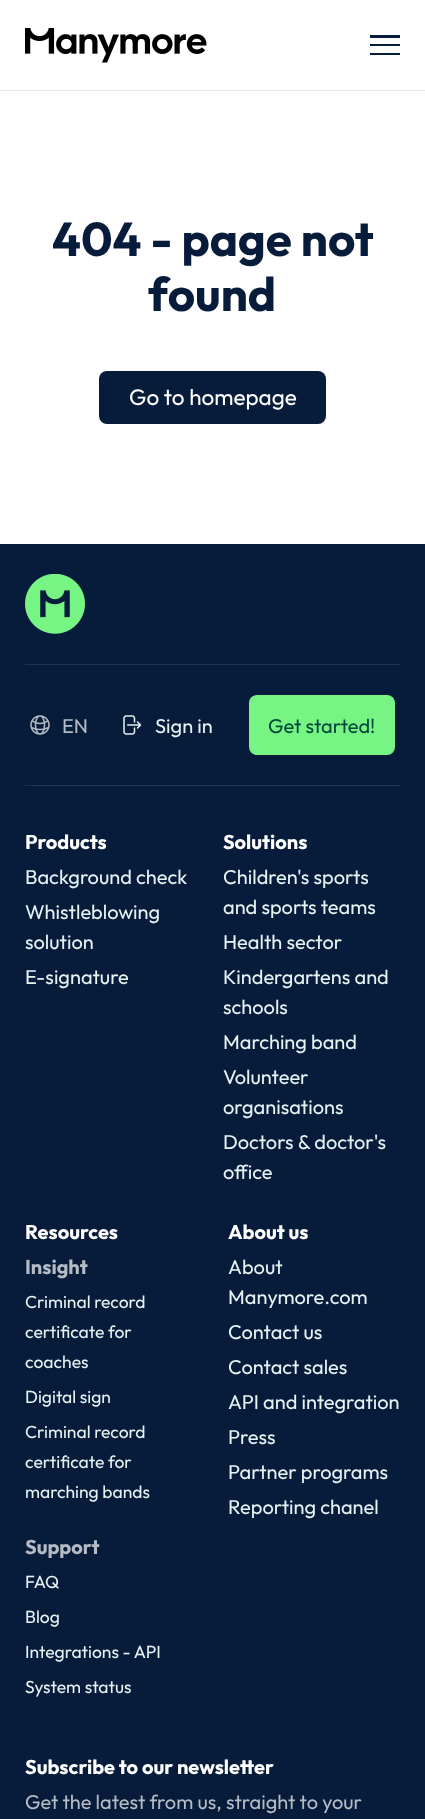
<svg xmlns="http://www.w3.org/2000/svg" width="425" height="1819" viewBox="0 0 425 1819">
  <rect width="100%" height="100%" fill="#fff"/>
  <path d="M0 90h425v1H0z" fill="#e6e8eb"/>
  <image x="25" y="28" width="182" height="35" href="img/1.png"/>
  <path d="M370 35h30v3H370z" fill="#071b3b"/>
  <path d="M370 53h30v2H370z" fill="#071b3b"/>
  <path d="M370 44h30v2H370z" fill="#071b3b"/>
  <rect x="99" y="371" width="227" height="53" rx="8" fill="#071b3b"/>
  <path d="M0 544h425v1275H0z" fill="#071b3b"/>
  <path d="M25 664h375v1H25z" fill="#20324f"/>
  <image x="25" y="574" width="60" height="60" href="img/2.png"/>
  <path d="M25 785h375v1H25z" fill="#20324f"/>
  <image x="30" y="715" width="20" height="20" href="img/3.png"/>
  <image x="123" y="715" width="19" height="20" href="img/4.png"/>
  <rect x="249" y="695" width="146" height="60" rx="8" fill="#76f584"/>
  <g font-family="Outfit" font-size="47.5" font-weight="bold" fill="#071b3b">
    <text x="52" y="256">404 - page not</text>
    <text x="148" y="311">found</text>
  </g>
  <text x="129" y="405" font-family="Outfit" font-size="22.5" fill="#fff">Go to homepage</text>
  <text x="62" y="733" font-family="Outfit" font-size="20" fill="#b5bbc4">EN</text>
  <text x="155" y="733" font-family="Outfit" font-size="20" fill="#e5f3f3">Sign in</text>
  <text x="268" y="733" font-family="Outfit" font-size="20" fill="#00473b">Get started!</text>
  <text x="25" y="849" font-family="Outfit" font-size="20" font-weight="bold" fill="#fff">Products</text>
  <g font-family="Outfit" font-size="20" fill="#e5f3f3">
    <text x="25" y="884">Background check</text>
    <text x="25" y="919">Whistleblowing</text>
    <text x="25" y="949">solution</text>
    <text x="25" y="984">E-signature</text>
  </g>
  <text x="223" y="849" font-family="Outfit" font-size="20" font-weight="bold" fill="#fff">Solutions</text>
  <g font-family="Outfit" font-size="20" fill="#e5f3f3">
    <text x="223" y="884">Children's sports</text>
    <text x="223" y="914">and sports teams</text>
    <text x="223" y="949">Health sector</text>
    <text x="223" y="984">Kindergartens and</text>
    <text x="223" y="1014">schools</text>
    <text x="223" y="1049">Marching band</text>
    <text x="223" y="1084">Volunteer</text>
    <text x="223" y="1114">organisations</text>
    <text x="223" y="1149">Doctors &amp; doctor's</text>
    <text x="223" y="1179">office</text>
  </g>
  <text x="25" y="1239" font-family="Outfit" font-size="20" font-weight="bold" fill="#fff">Resources</text>
  <text x="25" y="1274" font-family="Outfit" font-size="20" font-weight="bold" fill="#b5bbc4">Insight</text>
  <g font-family="Outfit" font-size="17.5" fill="#e5f3f3">
    <text x="25" y="1308">Criminal record</text>
    <text x="25" y="1338">certificate for</text>
    <text x="25" y="1368">coaches</text>
    <text x="25" y="1403">Digital sign</text>
    <text x="25" y="1438">Criminal record</text>
    <text x="25" y="1468">certificate for</text>
    <text x="25" y="1498">marching bands</text>
  </g>
  <text x="25" y="1554" font-family="Outfit" font-size="20" font-weight="bold" fill="#b5bbc4">Support</text>
  <g font-family="Outfit" font-size="17.5" fill="#e5f3f3">
    <text x="25" y="1588">FAQ</text>
    <text x="25" y="1623">Blog</text>
    <text x="25" y="1658">Integrations - API</text>
    <text x="25" y="1693">System status</text>
  </g>
  <text x="228" y="1239" font-family="Outfit" font-size="20" font-weight="bold" fill="#fff">About us</text>
  <g font-family="Outfit" font-size="20" fill="#e5f3f3">
    <text x="228" y="1274">About</text>
    <text x="228" y="1304">Manymore.com</text>
    <text x="228" y="1339">Contact us</text>
    <text x="228" y="1374">Contact sales</text>
    <text x="228" y="1409">API and integration</text>
    <text x="228" y="1444">Press</text>
    <text x="228" y="1479">Partner programs</text>
    <text x="228" y="1514">Reporting chanel</text>
  </g>
  <text x="25" y="1774" font-family="Outfit" font-size="20" font-weight="bold" fill="#fff">Subscribe to our newsletter</text>
  <text x="25" y="1809" font-family="Outfit" font-size="20" fill="#b5bbc4">Get the latest from us, straight to your</text>
</svg>
